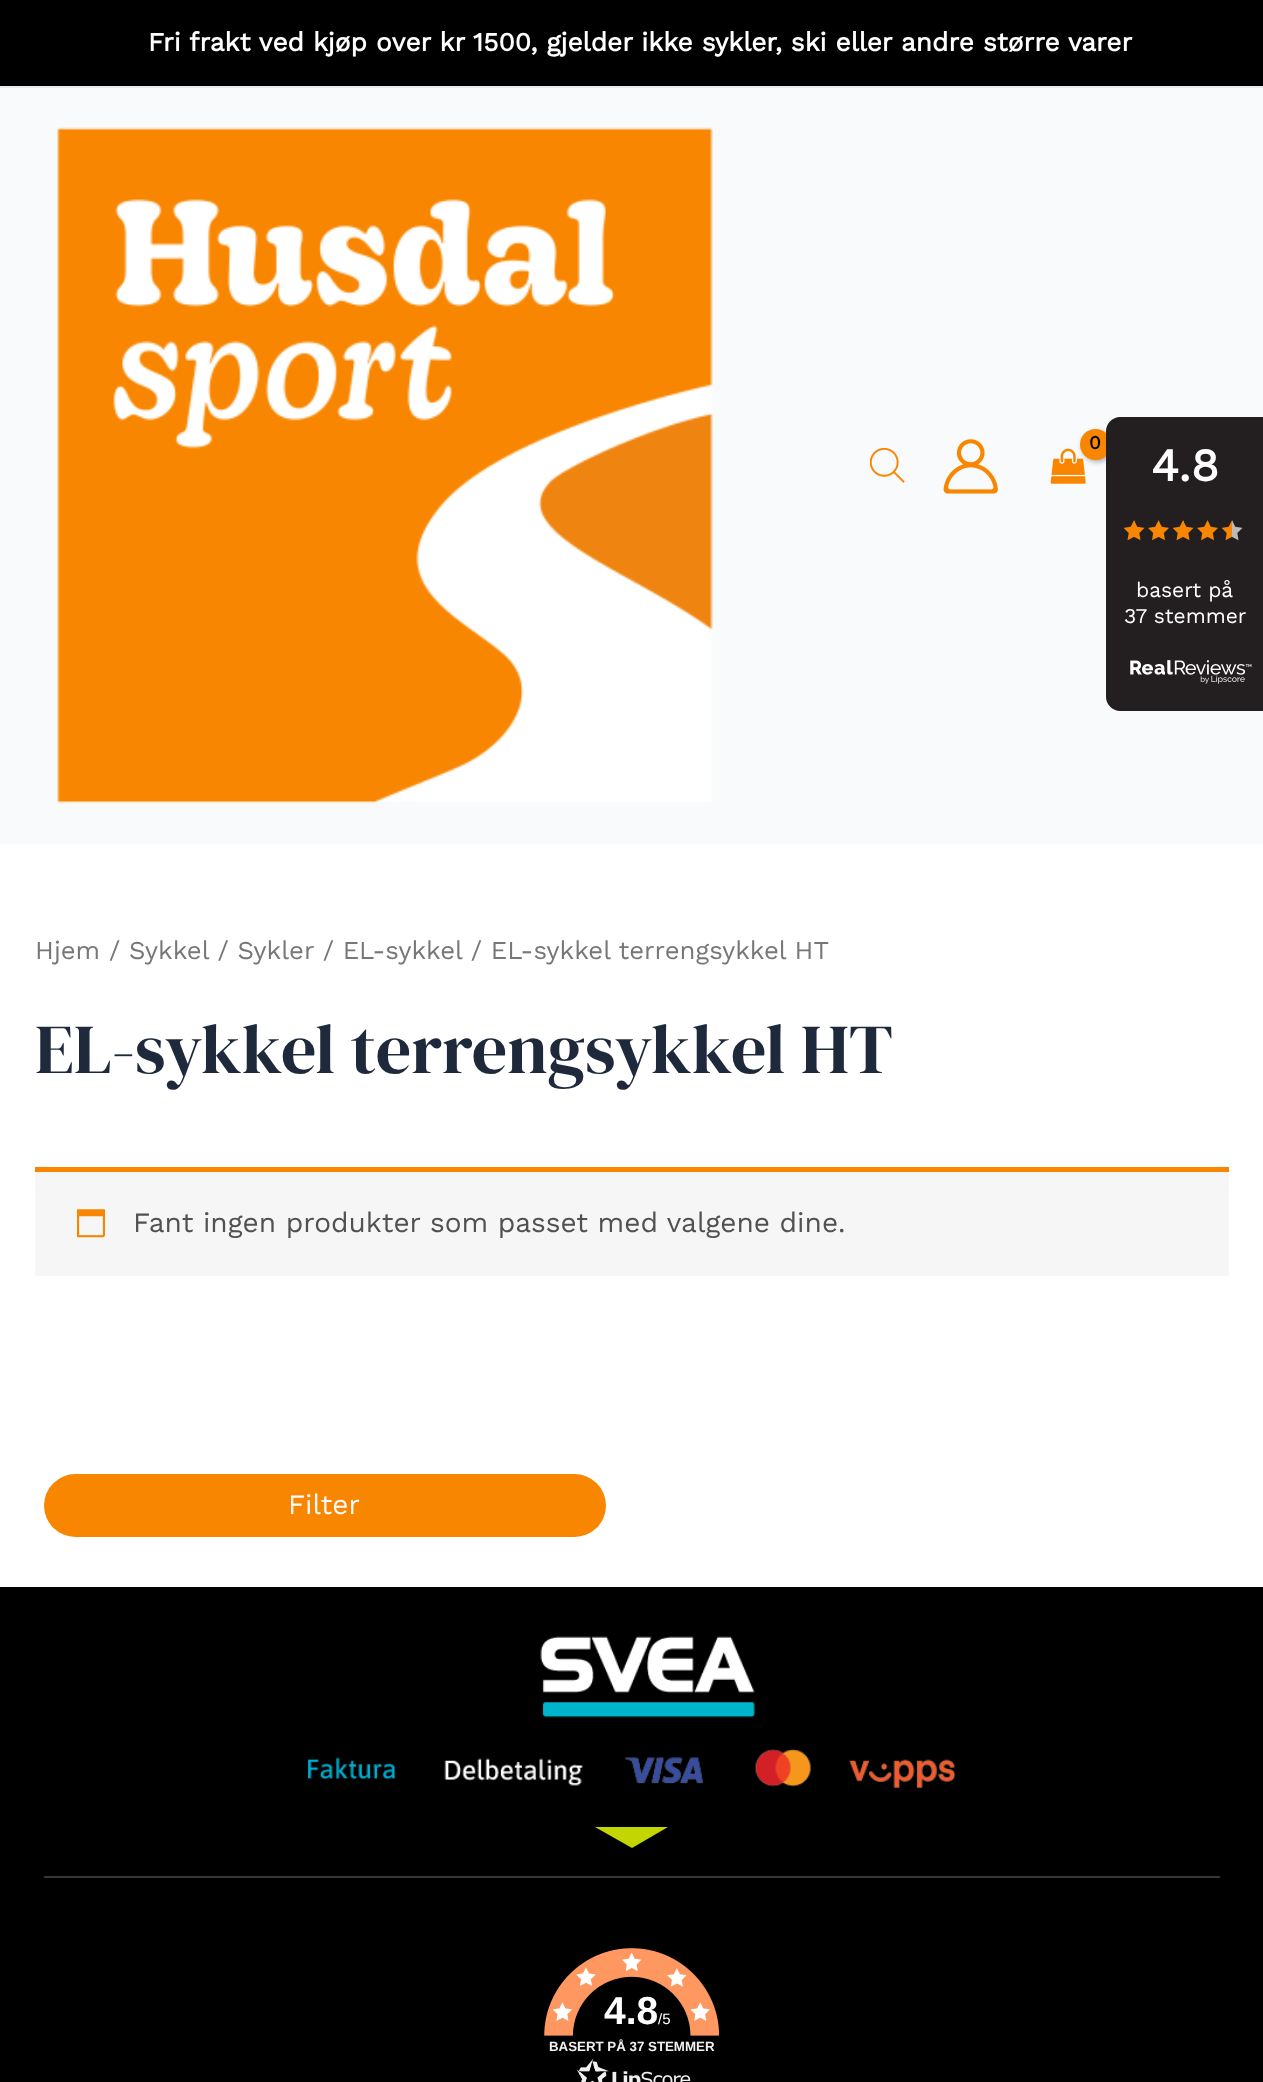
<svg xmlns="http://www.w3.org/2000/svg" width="1263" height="2082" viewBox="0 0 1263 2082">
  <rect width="100%" height="100%" fill="#fff"/>
  <path d="M0 0h1263v86H0z" fill="#000"/>
  <path d="M0 86h1263v2H0z" fill="#eaeaea"/>
  <path d="M0 88h1263v756H0z" fill="#f9fafb"/>
  <image x="57" y="127" width="656" height="677" href="img/1.png"/>
  <image x="870" y="448" width="35" height="35" href="img/2.png"/>
  <image x="943" y="439" width="55" height="55" href="img/3.png"/>
  <image x="1050" y="448" width="36" height="36" href="img/4.png"/>
  <rect x="1082" y="431" width="31" height="31" rx="15.5" fill="#0000004d" filter="blur(2.5px)"/>
  <circle cx="1095.5" cy="444.5" r="15.5" fill="#f98600"/>
  <path d="M35 1172h1194v104H35z" fill="#f7f6f7"/>
  <path d="M35 1167h1194v5H35z" fill="#f98600"/>
  <image x="77" y="1209" width="28" height="29" href="img/5.png"/>
  <rect x="44" y="1474" width="562" height="63" rx="31.5" fill="#f98600"/>
  <path d="M0 1587h1263v495H0z" fill="#000"/>
  <image x="308" y="1636" width="648" height="152" href="img/6.png"/>
  <path d="M632 1848L595 1827H668Z" fill="#c4d602"/>
  <path d="M44 1876h1176v2H44z" fill="#363636"/>
  <image x="544" y="1948" width="175" height="134" href="img/7.png"/>
  <path d="M1120 417H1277V711H1120C1112.5 711 1106 704.5 1106 697V431C1106 423.5 1112.5 417 1120 417Z" fill="#231f20"/>
  <image x="1124" y="520" width="21" height="21" href="img/8.png"/>
  <image x="1148" y="520" width="21" height="21" href="img/9.png"/>
  <image x="1173" y="520" width="21" height="21" href="img/8.png"/>
  <image x="1197" y="520" width="21" height="21" href="img/9.png"/>
  <image x="1222" y="520" width="21" height="21" href="img/10.png"/>
  <image x="1130" y="660" width="122" height="24" href="img/11.png"/>
  <text x="148" y="51" font-family="Work Sans" font-size="26.25" font-weight="bold" fill="#fff">Fri frakt ved kjøp over kr 1500, gjelder ikke sykler, ski eller andre større varer</text>
  <text x="1089" y="449" font-family="Work Sans" font-size="19" font-weight="bold" letter-spacing="-1" fill="#000">0</text>
  <text x="35" y="959" font-family="Work Sans" font-size="25.75" fill="#777">Hjem / Sykkel / Sykler / EL-sykkel / EL-sykkel terrengsykkel HT</text>
  <text x="35" y="1073" font-family="DM Serif Display" font-size="70" fill="#1e293b">EL-sykkel terrengsykkel HT</text>
  <text x="133" y="1232" font-family="Work Sans" font-size="28" fill="#515151">Fant ingen produkter som passet med valgene dine.</text>
  <text x="288" y="1514" font-family="Work Sans" font-size="28" fill="#f9fafb">Filter</text>
  <text x="604" y="2024" font-family="Liberation Sans" font-size="39" font-weight="bold" fill="#fff">4.8</text>
  <text x="658" y="2024" font-family="Liberation Sans" font-size="15" fill="#fff">/5</text>
  <text x="549" y="2051" font-family="Liberation Sans" font-size="13.3" font-weight="bold" fill="#f0f0f0">BASERT PÅ 37 STEMMER</text>
  <text x="1151" y="481" font-family="Work Sans" font-size="46" font-weight="bold" fill="#fff">4.8</text>
  <g font-family="Work Sans" font-size="21" fill="#fff">
    <text x="1136" y="597">basert på</text>
    <text x="1124" y="623">37 stemmer</text>
  </g>
</svg>
